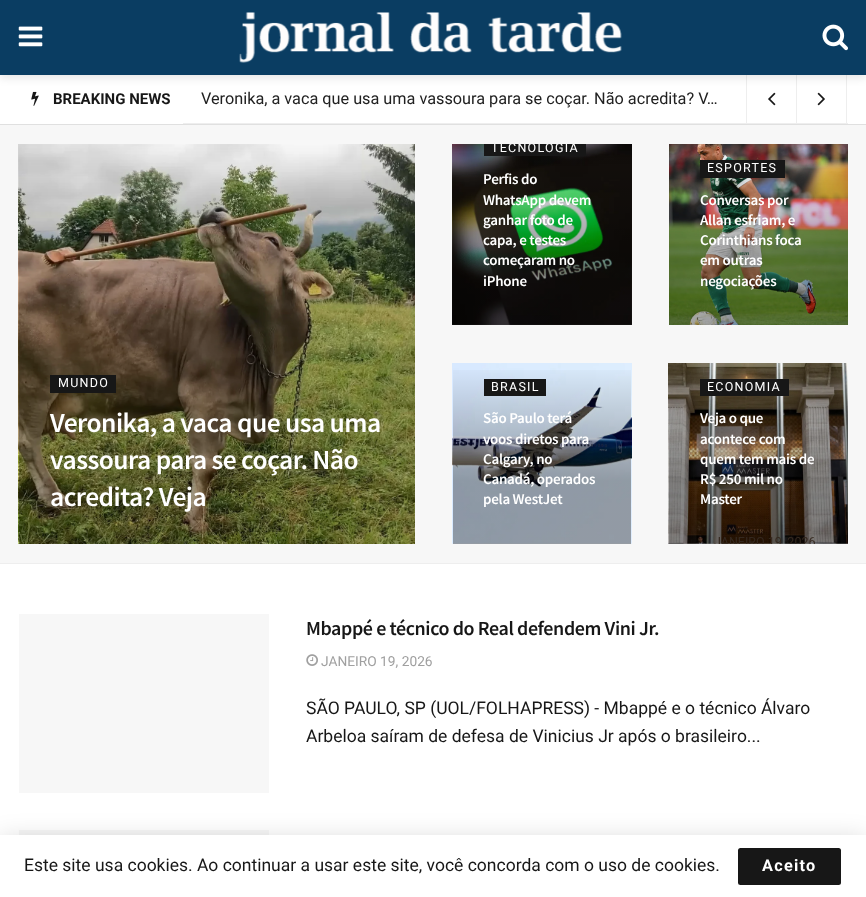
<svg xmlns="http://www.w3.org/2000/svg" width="866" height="897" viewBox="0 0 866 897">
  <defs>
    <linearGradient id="g1" gradientUnits="userSpaceOnUse" x1="523" y1="144" x2="523" y2="325"><stop offset="0" stop-color="#000" stop-opacity="0"/><stop offset="0.65" stop-color="#000" stop-opacity="0.35"/><stop offset="1" stop-color="#000" stop-opacity="0.35"/></linearGradient>
    <linearGradient id="g2" gradientUnits="userSpaceOnUse" x1="523" y1="363" x2="523" y2="544"><stop offset="0" stop-color="#000" stop-opacity="0"/><stop offset="0.65" stop-color="#000" stop-opacity="0.35"/><stop offset="1" stop-color="#000" stop-opacity="0.35"/></linearGradient>
    <linearGradient id="g3" gradientUnits="userSpaceOnUse" x1="739" y1="363" x2="739" y2="544"><stop offset="0" stop-color="#000" stop-opacity="0"/><stop offset="0.65" stop-color="#000" stop-opacity="0.35"/><stop offset="1" stop-color="#000" stop-opacity="0.35"/></linearGradient>
    <clipPath id="clip1"><path d="M453 144h178v181H453z"/></clipPath>
    <clipPath id="clip2"><path d="M669 363h179v181H669z"/></clipPath>
  </defs>
  <rect width="100%" height="100%" fill="#fff"/>
  <path d="M846 74h1v50H846z" fill="#eee"/>
  <path d="M746 75h1v48H746z" fill="#eee"/>
  <path d="M796 75h1v48H796z" fill="#eee"/>
  <path d="M0 3h866v75H0z" fill="#0000001a" filter="blur(4px)"/>
  <path d="M0 0h866v75H0z" fill="#0a3d62"/>
  <image x="18" y="26" width="25" height="21" href="img/1.png"/>
  <image x="239" y="12" width="383" height="51" href="img/2.png"/>
  <image x="822" y="24" width="26" height="27" href="img/3.png"/>
  <path d="M0 124h866v1H0z" fill="#e0e0e0"/>
  <image x="31" y="91" width="8" height="15" href="img/4.png"/>
  <path d="M183 123h665v1H183z" fill="#eee"/>
  <image x="768" y="92" width="8" height="14" href="img/5.png"/>
  <image x="817" y="92" width="8" height="14" href="img/6.png"/>
  <path d="M0 125h866v438H0z" fill="#f7f7f7"/>
  <path d="M0 563h866v1H0z" fill="#eee"/>
  <image x="18" y="144" width="397" height="400" href="img/7.png"/>
  <path d="M50 375h66v18H50z" fill="#171717"/>
  <image x="452" y="144" width="180" height="181" href="img/8.png"/>
  <path d="M453 153h178v172H453z" fill="url(#g1)"/>
  <path d="M484 144h102v12H484z" fill="#171717"/>
  <image x="669" y="144" width="179" height="181" href="img/9.png"/>
  <path d="M700 160h85v18H700z" fill="#171717"/>
  <image x="452" y="363" width="180" height="181" href="img/10.png"/>
  <path d="M453 370h178v174H453z" fill="url(#g2)"/>
  <path d="M484 379h62v17H484z" fill="#171717"/>
  <image x="668" y="363" width="180" height="181" href="img/11.png"/>
  <path d="M669 370h179v174H669z" fill="url(#g3)"/>
  <path d="M700 379h89v17H700z" fill="#171717"/>
  <path d="M19 614h250v179H19z" fill="#f7f7f7"/>
  <image x="306" y="654" width="12" height="12" href="img/12.png"/>
  <path d="M19 830h250v5H19z" fill="#f7f7f7"/>
  <path d="M0 838h866v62H0z" fill="#00000026" filter="blur(12.5px)"/>
  <path d="M0 835h866v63H0z" fill="#00000033" filter="blur(0.5px)"/>
  <path d="M0 835h866v62H0z" fill="#fff"/>
  <rect x="738" y="848" width="103" height="37" rx="2.5" fill="#171717"/>
  <text x="53" y="104" font-family="Roboto" font-size="15" font-weight="bold" fill="#171717">BREAKING NEWS</text>
  <text x="201" y="104" font-family="Roboto" font-size="16.25" fill="#212121">Veronika, a vaca que usa uma vassoura para se coçar. Não acredita? V…</text>
  <text x="58" y="387" font-family="Roboto" font-size="12.5" letter-spacing="1.25" fill="#fff">MUNDO</text>
  <g font-family="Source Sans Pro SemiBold" font-size="27.5" font-weight="600" letter-spacing="-0.55" fill="#fff">
    <text x="50" y="432">Veronika, a vaca que usa uma</text>
    <text x="50" y="469">vassoura para se coçar. Não</text>
    <text x="50" y="506">acredita? Veja</text>
  </g>
  <g clip-path="url(#clip1)">
    <text x="491" y="152" font-family="Roboto" font-size="12.5" letter-spacing="1.25" fill="#fff">TECNOLOGIA</text>
  </g>
  <g font-family="Source Sans Pro SemiBold" font-size="15" font-weight="600" letter-spacing="-0.25" fill="#fff">
    <text x="483" y="184">Perfis do</text>
    <text x="483" y="205">WhatsApp devem</text>
    <text x="483" y="225">ganhar foto de</text>
    <text x="483" y="245">capa, e testes</text>
    <text x="483" y="265">começaram no</text>
    <text x="483" y="286">iPhone</text>
  </g>
  <text x="707" y="172" font-family="Roboto" font-size="12.5" letter-spacing="1.25" fill="#fff">ESPORTES</text>
  <g font-family="Source Sans Pro SemiBold" font-size="15" font-weight="600" letter-spacing="-0.25" fill="#fff">
    <text x="700" y="205">Conversas por</text>
    <text x="700" y="225">Allan esfriam, e</text>
    <text x="700" y="245">Corinthians foca</text>
    <text x="700" y="265">em outras</text>
    <text x="700" y="286">negociações</text>
  </g>
  <text x="491" y="391" font-family="Roboto" font-size="12.5" letter-spacing="1.25" fill="#fff">BRASIL</text>
  <g font-family="Source Sans Pro SemiBold" font-size="15" font-weight="600" letter-spacing="-0.25" fill="#fff">
    <text x="483" y="423">São Paulo terá</text>
    <text x="483" y="444">voos diretos para</text>
    <text x="483" y="464">Calgary, no</text>
    <text x="483" y="484">Canadá, operados</text>
    <text x="483" y="504">pela WestJet</text>
  </g>
  <text x="707" y="391" font-family="Roboto" font-size="12.5" letter-spacing="1.25" fill="#fff">ECONOMIA</text>
  <g font-family="Source Sans Pro SemiBold" font-size="15" font-weight="600" letter-spacing="-0.25" fill="#fff">
    <text x="700" y="423">Veja o que</text>
    <text x="700" y="444">acontece com</text>
    <text x="700" y="464">quem tem mais de</text>
    <text x="700" y="484">R$ 250 mil no</text>
    <text x="700" y="504">Master</text>
  </g>
  <g clip-path="url(#clip2)">
    <text x="714" y="546" font-family="Roboto" font-size="12.5" fill="#34281f">JANEIRO 19, 2026</text>
  </g>
  <text x="306" y="635" font-family="Source Sans Pro SemiBold" font-size="20" font-weight="600" letter-spacing="-0.4" fill="#171717">Mbappé e técnico do Real defendem Vini Jr.</text>
  <text x="321" y="666" font-family="Roboto" font-size="13.75" fill="#a0a0a0">JANEIRO 19, 2026</text>
  <g font-family="Roboto" font-size="17.5" fill="#171717">
    <text x="306" y="714">SÃO PAULO, SP (UOL/FOLHAPRESS) - Mbappé e o técnico Álvaro</text>
    <text x="306" y="742">Arbeloa saíram de defesa de Vinicius Jr após o brasileiro...</text>
    <text x="24" y="871">Este site usa cookies. Ao continuar a usar este site, você concorda com o uso de cookies.</text>
  </g>
  <text x="762" y="871" font-family="Roboto" font-size="16.25" font-weight="bold" letter-spacing="1.25" fill="#fff">Aceito</text>
</svg>
